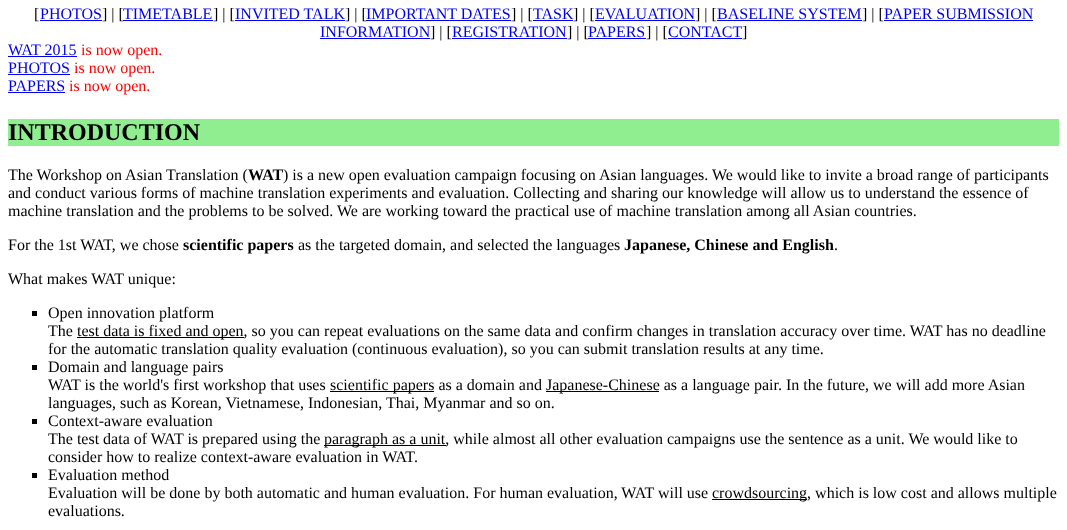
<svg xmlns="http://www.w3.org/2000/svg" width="1067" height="530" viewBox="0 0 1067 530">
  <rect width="100%" height="100%" fill="#fff"/>
  <path d="M40 20h62v1H40z" fill="#00e"/>
  <path d="M123 20h90v1H123z" fill="#00e"/>
  <path d="M235 20h110v1H235z" fill="#00e"/>
  <path d="M366 20h145v1H366z" fill="#00e"/>
  <path d="M533 20h40v1H533z" fill="#00e"/>
  <path d="M595 20h100v1H595z" fill="#00e"/>
  <path d="M717 20h145v1H717z" fill="#00e"/>
  <path d="M884 20h149v1H884z" fill="#00e"/>
  <path d="M320 38h110v1H320z" fill="#00e"/>
  <path d="M452 38h115v1H452z" fill="#00e"/>
  <path d="M588 38h58v1H588z" fill="#00e"/>
  <path d="M668 38h74v1H668z" fill="#00e"/>
  <path d="M8 56h69v1H8z" fill="#00e"/>
  <path d="M8 74h62v1H8z" fill="#00e"/>
  <path d="M8 92h57v1H8z" fill="#00e"/>
  <path d="M8 119h1051v27H8z" fill="#90ee90"/>
  <path d="M32 311h5v5H32z" fill="#000"/>
  <path d="M77 337h167v1H77z" fill="#000"/>
  <path d="M32 365h5v5H32z" fill="#000"/>
  <path d="M330 391h104v1H330z" fill="#000"/>
  <path d="M546 391h113v1H546z" fill="#000"/>
  <path d="M32 419h5v5H32z" fill="#000"/>
  <path d="M324 445h122v1H324z" fill="#000"/>
  <path d="M32 473h5v5H32z" fill="#000"/>
  <path d="M712 499h95v1H712z" fill="#000"/>
  <text x="34" y="19" font-family="Liberation Serif" font-size="16" fill="#000">[</text>
  <text x="40" y="19" font-family="Liberation Serif" font-size="16" fill="#00e">PHOTOS</text>
  <text x="102" y="19" font-family="Liberation Serif" font-size="16" fill="#000">] | [</text>
  <text x="123" y="19" font-family="Liberation Serif" font-size="16" fill="#00e">TIMETABLE</text>
  <text x="213" y="19" font-family="Liberation Serif" font-size="16" fill="#000">] | [</text>
  <text x="235" y="19" font-family="Liberation Serif" font-size="16" fill="#00e">INVITED TALK</text>
  <text x="345" y="19" font-family="Liberation Serif" font-size="16" fill="#000">] | [</text>
  <text x="366" y="19" font-family="Liberation Serif" font-size="16" fill="#00e">IMPORTANT DATES</text>
  <text x="511" y="19" font-family="Liberation Serif" font-size="16" fill="#000">] | [</text>
  <text x="533" y="19" font-family="Liberation Serif" font-size="16" fill="#00e">TASK</text>
  <text x="573" y="19" font-family="Liberation Serif" font-size="16" fill="#000">] | [</text>
  <text x="595" y="19" font-family="Liberation Serif" font-size="16" fill="#00e">EVALUATION</text>
  <text x="695" y="19" font-family="Liberation Serif" font-size="16" fill="#000">] | [</text>
  <text x="717" y="19" font-family="Liberation Serif" font-size="16" fill="#00e">BASELINE SYSTEM</text>
  <text x="862" y="19" font-family="Liberation Serif" font-size="16" fill="#000">] | [</text>
  <g font-family="Liberation Serif" font-size="16" fill="#00e">
    <text x="884" y="19">PAPER SUBMISSION</text>
    <text x="320" y="37">INFORMATION</text>
  </g>
  <text x="430" y="37" font-family="Liberation Serif" font-size="16" fill="#000">] | [</text>
  <text x="452" y="37" font-family="Liberation Serif" font-size="16" fill="#00e">REGISTRATION</text>
  <text x="567" y="37" font-family="Liberation Serif" font-size="16" fill="#000">] | [</text>
  <text x="588" y="37" font-family="Liberation Serif" font-size="16" fill="#00e">PAPERS</text>
  <text x="646" y="37" font-family="Liberation Serif" font-size="16" fill="#000">] | [</text>
  <text x="668" y="37" font-family="Liberation Serif" font-size="16" fill="#00e">CONTACT</text>
  <text x="742" y="37" font-family="Liberation Serif" font-size="16" fill="#000">]</text>
  <text x="8" y="55" font-family="Liberation Serif" font-size="16" fill="#00e">WAT 2015</text>
  <text x="81" y="55" font-family="Liberation Serif" font-size="16" fill="#f00">is now open.</text>
  <text x="8" y="73" font-family="Liberation Serif" font-size="16" fill="#00e">PHOTOS</text>
  <text x="74" y="73" font-family="Liberation Serif" font-size="16" fill="#f00">is now open.</text>
  <text x="8" y="91" font-family="Liberation Serif" font-size="16" fill="#00e">PAPERS</text>
  <text x="69" y="91" font-family="Liberation Serif" font-size="16" fill="#f00">is now open.</text>
  <text x="8" y="140" font-family="Liberation Serif" font-size="24" font-weight="bold" fill="#000">INTRODUCTION</text>
  <text x="8" y="180" font-family="Liberation Serif" font-size="16" fill="#000">The Workshop on Asian Translation (</text>
  <text x="248" y="180" font-family="Liberation Serif" font-size="16" font-weight="bold" fill="#000">WAT</text>
  <g font-family="Liberation Serif" font-size="16" fill="#000">
    <text x="283" y="180">) is a new open evaluation campaign focusing on Asian languages. We would like to invite a broad range of participants</text>
    <text x="8" y="198">and conduct various forms of machine translation experiments and evaluation. Collecting and sharing our knowledge will allow us to understand the essence of</text>
    <text x="8" y="216">machine translation and the problems to be solved. We are working toward the practical use of machine translation among all Asian countries.</text>
    <text x="8" y="250">For the 1st WAT, we chose</text>
  </g>
  <text x="183" y="250" font-family="Liberation Serif" font-size="16" font-weight="bold" fill="#000">scientific papers</text>
  <text x="298" y="250" font-family="Liberation Serif" font-size="16" fill="#000">as the targeted domain, and selected the languages</text>
  <text x="624" y="250" font-family="Liberation Serif" font-size="16" font-weight="bold" fill="#000">Japanese, Chinese and English</text>
  <g font-family="Liberation Serif" font-size="16" fill="#000">
    <text x="834" y="250">.</text>
    <text x="8" y="284">What makes WAT unique:</text>
    <text x="48" y="318">Open innovation platform</text>
    <text x="48" y="336">The</text>
    <text x="77" y="336">test data is fixed and open, so you can repeat evaluations on the same data and confirm changes in translation accuracy over time. WAT has no deadline</text>
    <text x="48" y="354">for the automatic translation quality evaluation (continuous evaluation), so you can submit translation results at any time.</text>
    <text x="48" y="372">Domain and language pairs</text>
    <text x="48" y="390">WAT is the world's first workshop that uses</text>
    <text x="330" y="390">scientific papers as a domain and</text>
    <text x="546" y="390">Japanese-Chinese as a language pair. In the future, we will add more Asian</text>
    <text x="48" y="408">languages, such as Korean, Vietnamese, Indonesian, Thai, Myanmar and so on.</text>
    <text x="48" y="426">Context-aware evaluation</text>
    <text x="48" y="444">The test data of WAT is prepared using the</text>
    <text x="324" y="444">paragraph as a unit, while almost all other evaluation campaigns use the sentence as a unit. We would like to</text>
    <text x="48" y="462">consider how to realize context-aware evaluation in WAT.</text>
    <text x="48" y="480">Evaluation method</text>
    <text x="48" y="498">Evaluation will be done by both automatic and human evaluation. For human evaluation, WAT will use</text>
    <text x="712" y="498">crowdsourcing, which is low cost and allows multiple</text>
    <text x="48" y="516">evaluations.</text>
  </g>
</svg>
